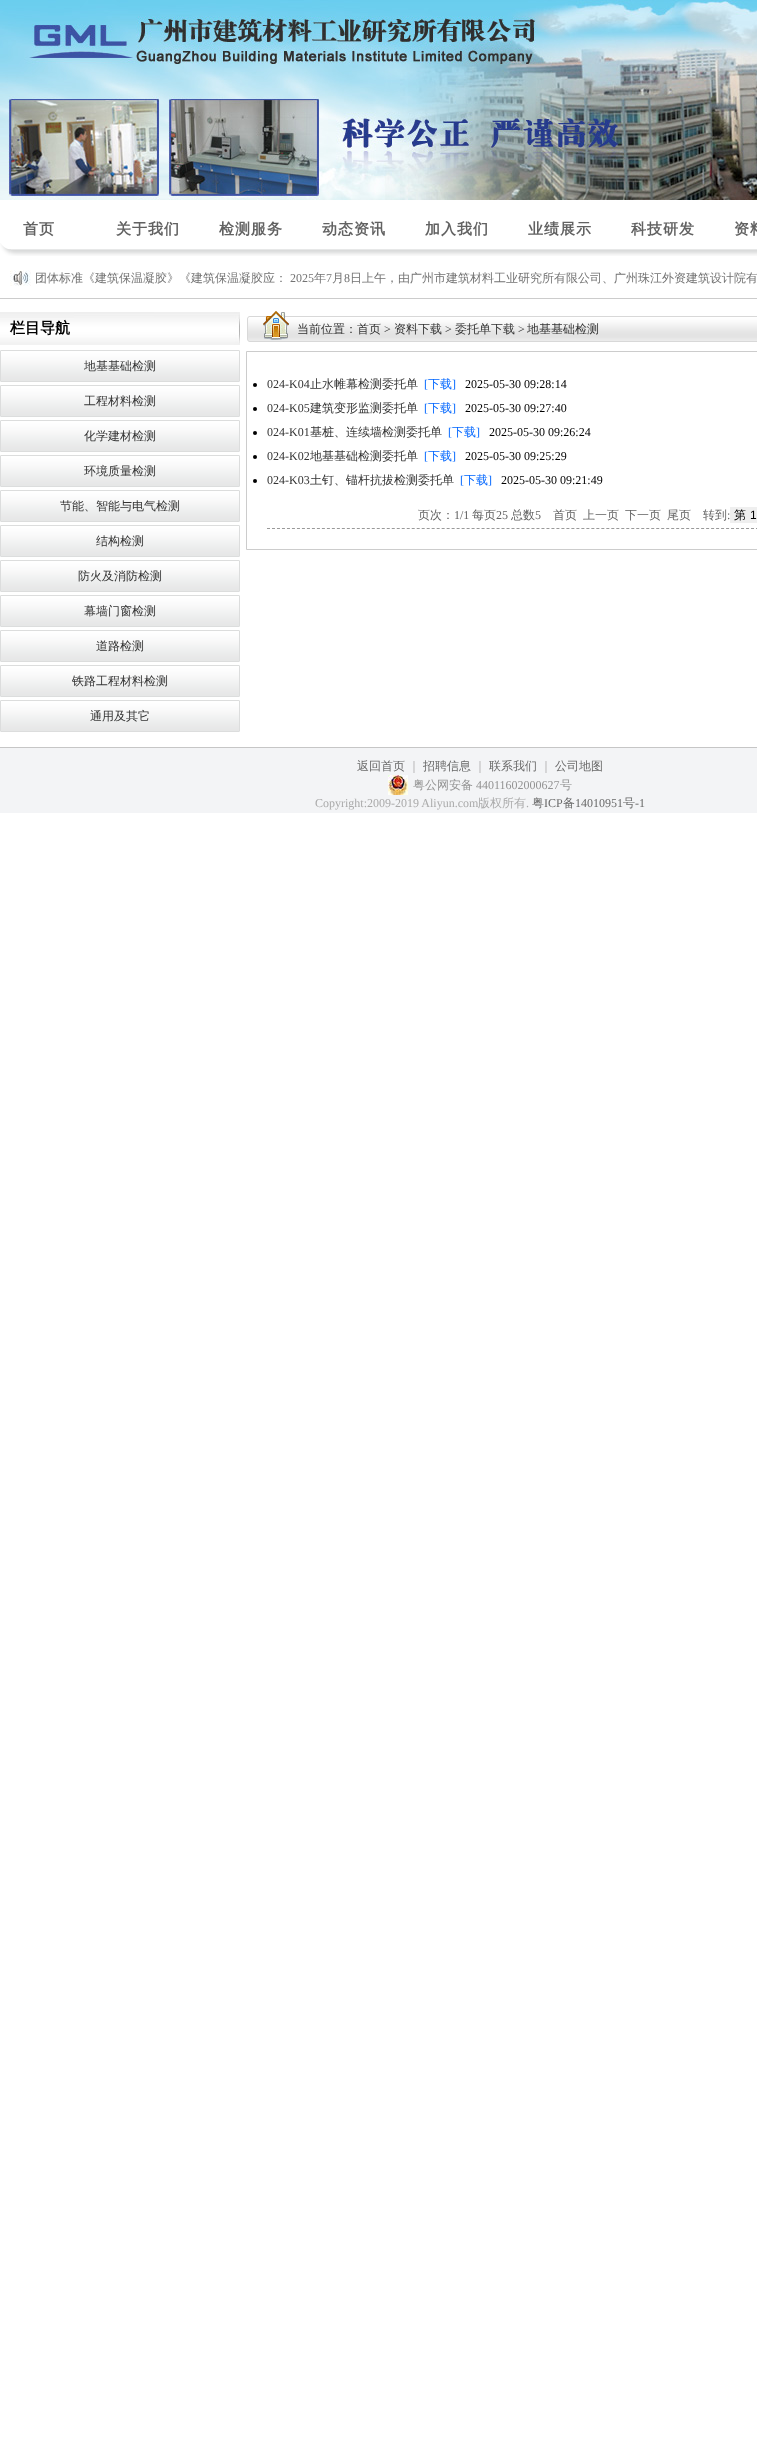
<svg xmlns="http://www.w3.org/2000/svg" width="757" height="2444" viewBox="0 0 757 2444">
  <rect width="100%" height="100%" fill="#fff"/>
  <image x="0" y="0" width="757" height="200" href="img/1.png"/>
  <image x="0" y="243" width="757" height="13" href="img/2.png"/>
  <image x="10" y="270" width="21" height="16" href="img/3.png"/>
  <path d="M0 298h757v1H0z" fill="#ccc"/>
  <image x="0" y="312" width="240" height="33" href="img/4.png"/>
  <image x="0" y="350" width="240" height="32" href="img/5.png"/>
  <image x="0" y="385" width="240" height="32" href="img/5.png"/>
  <image x="0" y="420" width="240" height="32" href="img/5.png"/>
  <image x="0" y="455" width="240" height="32" href="img/5.png"/>
  <image x="0" y="490" width="240" height="32" href="img/5.png"/>
  <image x="0" y="525" width="240" height="32" href="img/5.png"/>
  <image x="0" y="560" width="240" height="32" href="img/5.png"/>
  <image x="0" y="595" width="240" height="32" href="img/5.png"/>
  <image x="0" y="630" width="240" height="32" href="img/5.png"/>
  <image x="0" y="665" width="240" height="32" href="img/5.png"/>
  <image x="0" y="700" width="240" height="32" href="img/5.png"/>
  <image x="247" y="311" width="510" height="31" href="img/6.png"/>
  <path d="M246.5 351.5h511v198H246.5z" fill="none" stroke="#ccc"/>
  <circle cx="255" cy="385" r="2" fill="#000"/>
  <circle cx="255" cy="409" r="2" fill="#000"/>
  <circle cx="255" cy="433" r="2" fill="#000"/>
  <circle cx="255" cy="457" r="2" fill="#000"/>
  <circle cx="255" cy="481" r="2" fill="#000"/>
  <path d="M267 528.5H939" fill="none" stroke="#999" stroke-dasharray="3 1.99"/>
  <path d="M730 507h27v16H730z" fill="#efefef"/>
  <path d="M0 748h757v65H0z" fill="#f3f4f6"/>
  <path d="M0 747h757v1H0z" fill="#c6c6c6"/>
  <image x="388" y="775" width="20" height="20" href="img/7.png"/>
  <g font-family="WenQuanYi Zen Hei" font-size="15" font-weight="bold" letter-spacing="1" fill="#626262">
    <text x="23" y="234">首页</text>
    <text x="116" y="234">关于我们</text>
    <text x="219" y="234">检测服务</text>
    <text x="322" y="234">动态资讯</text>
    <text x="425" y="234">加入我们</text>
    <text x="528" y="234">业绩展示</text>
    <text x="631" y="234">科技研发</text>
    <text x="734" y="234">资料</text>
  </g>
  <text x="35" y="282" font-family="WenQuanYi Zen Hei" font-size="12" font-weight="500" fill="#737373">团体标准《建筑保温凝胶》《建筑保温凝胶应：</text>
  <text x="290" y="282" font-family="Liberation Serif" font-size="12" fill="#737373">2025</text>
  <text x="314" y="282" font-family="WenQuanYi Zen Hei" font-size="12" font-weight="500" fill="#737373">年</text>
  <text x="326" y="282" font-family="Liberation Serif" font-size="12" fill="#737373">7</text>
  <text x="332" y="282" font-family="WenQuanYi Zen Hei" font-size="12" font-weight="500" fill="#737373">月</text>
  <text x="344" y="282" font-family="Liberation Serif" font-size="12" fill="#737373">8</text>
  <text x="350" y="282" font-family="WenQuanYi Zen Hei" font-size="12" font-weight="500" fill="#737373">日上午，由广州市建筑材料工业研究所有限公司、广州珠江外资建筑设计院有</text>
  <text x="10" y="333" font-family="WenQuanYi Zen Hei" font-size="15" font-weight="bold" fill="#000">栏目导航</text>
  <g font-family="WenQuanYi Zen Hei" font-size="12" font-weight="500" fill="#333">
    <text x="84" y="370">地基基础检测</text>
    <text x="84" y="405">工程材料检测</text>
    <text x="84" y="440">化学建材检测</text>
    <text x="84" y="475">环境质量检测</text>
    <text x="60" y="510">节能、智能与电气检测</text>
    <text x="96" y="545">结构检测</text>
    <text x="78" y="580">防火及消防检测</text>
    <text x="84" y="615">幕墙门窗检测</text>
    <text x="96" y="650">道路检测</text>
    <text x="72" y="685">铁路工程材料检测</text>
    <text x="90" y="720">通用及其它</text>
    <text x="297" y="333">当前位置：首页</text>
  </g>
  <text x="384" y="333" font-family="Liberation Serif" font-size="12" fill="#333">&gt;</text>
  <text x="394" y="333" font-family="WenQuanYi Zen Hei" font-size="12" font-weight="500" fill="#333">资料下载</text>
  <text x="445" y="333" font-family="Liberation Serif" font-size="12" fill="#333">&gt;</text>
  <text x="455" y="333" font-family="WenQuanYi Zen Hei" font-size="12" font-weight="500" fill="#333">委托单下载</text>
  <text x="518" y="333" font-family="Liberation Serif" font-size="12" fill="#333">&gt;</text>
  <text x="527" y="333" font-family="WenQuanYi Zen Hei" font-size="12" font-weight="500" fill="#333">地基基础检测</text>
  <text x="267" y="388" font-family="Liberation Serif" font-size="12" fill="#333">024-K04</text>
  <text x="310" y="388" font-family="WenQuanYi Zen Hei" font-size="12" font-weight="500" fill="#333">止水帷幕检测委托单</text>
  <text x="424" y="388" font-family="Liberation Serif" font-size="12" fill="#06f">[</text>
  <text x="428" y="388" font-family="WenQuanYi Zen Hei" font-size="12" font-weight="500" fill="#06f">下载</text>
  <text x="452" y="388" font-family="Liberation Serif" font-size="12" fill="#06f">]</text>
  <text x="465" y="388" font-family="Liberation Serif" font-size="12" fill="#000">2025-05-30 09:28:14</text>
  <text x="267" y="412" font-family="Liberation Serif" font-size="12" fill="#333">024-K05</text>
  <text x="310" y="412" font-family="WenQuanYi Zen Hei" font-size="12" font-weight="500" fill="#333">建筑变形监测委托单</text>
  <text x="424" y="412" font-family="Liberation Serif" font-size="12" fill="#06f">[</text>
  <text x="428" y="412" font-family="WenQuanYi Zen Hei" font-size="12" font-weight="500" fill="#06f">下载</text>
  <text x="452" y="412" font-family="Liberation Serif" font-size="12" fill="#06f">]</text>
  <text x="465" y="412" font-family="Liberation Serif" font-size="12" fill="#000">2025-05-30 09:27:40</text>
  <text x="267" y="436" font-family="Liberation Serif" font-size="12" fill="#333">024-K01</text>
  <text x="310" y="436" font-family="WenQuanYi Zen Hei" font-size="12" font-weight="500" fill="#333">基桩、连续墙检测委托单</text>
  <text x="448" y="436" font-family="Liberation Serif" font-size="12" fill="#06f">[</text>
  <text x="452" y="436" font-family="WenQuanYi Zen Hei" font-size="12" font-weight="500" fill="#06f">下载</text>
  <text x="476" y="436" font-family="Liberation Serif" font-size="12" fill="#06f">]</text>
  <text x="489" y="436" font-family="Liberation Serif" font-size="12" fill="#000">2025-05-30 09:26:24</text>
  <text x="267" y="460" font-family="Liberation Serif" font-size="12" fill="#333">024-K02</text>
  <text x="310" y="460" font-family="WenQuanYi Zen Hei" font-size="12" font-weight="500" fill="#333">地基基础检测委托单</text>
  <text x="424" y="460" font-family="Liberation Serif" font-size="12" fill="#06f">[</text>
  <text x="428" y="460" font-family="WenQuanYi Zen Hei" font-size="12" font-weight="500" fill="#06f">下载</text>
  <text x="452" y="460" font-family="Liberation Serif" font-size="12" fill="#06f">]</text>
  <text x="465" y="460" font-family="Liberation Serif" font-size="12" fill="#000">2025-05-30 09:25:29</text>
  <text x="267" y="484" font-family="Liberation Serif" font-size="12" fill="#333">024-K03</text>
  <text x="310" y="484" font-family="WenQuanYi Zen Hei" font-size="12" font-weight="500" fill="#333">土钉、锚杆抗拔检测委托单</text>
  <text x="460" y="484" font-family="Liberation Serif" font-size="12" fill="#06f">[</text>
  <text x="464" y="484" font-family="WenQuanYi Zen Hei" font-size="12" font-weight="500" fill="#06f">下载</text>
  <text x="488" y="484" font-family="Liberation Serif" font-size="12" fill="#06f">]</text>
  <text x="501" y="484" font-family="Liberation Serif" font-size="12" fill="#000">2025-05-30 09:21:49</text>
  <text x="418" y="519" font-family="WenQuanYi Zen Hei" font-size="12" font-weight="500" fill="#626262">页次：</text>
  <text x="454" y="519" font-family="Liberation Serif" font-size="12" fill="#626262">1/1</text>
  <text x="472" y="519" font-family="WenQuanYi Zen Hei" font-size="12" font-weight="500" fill="#626262">每页</text>
  <text x="496" y="519" font-family="Liberation Serif" font-size="12" fill="#626262">25</text>
  <text x="511" y="519" font-family="WenQuanYi Zen Hei" font-size="12" font-weight="500" fill="#626262">总数</text>
  <text x="535" y="519" font-family="Liberation Serif" font-size="12" fill="#626262">5</text>
  <g font-family="WenQuanYi Zen Hei" font-size="12" font-weight="500" fill="#626262">
    <text x="553" y="519">首页</text>
    <text x="583" y="519">上一页</text>
    <text x="625" y="519">下一页</text>
    <text x="667" y="519">尾页</text>
    <text x="703" y="519">转到</text>
  </g>
  <text x="727" y="519" font-family="Liberation Serif" font-size="12" fill="#626262">:</text>
  <text x="734" y="519" font-family="WenQuanYi Zen Hei" font-size="12" font-weight="500" fill="#000">第</text>
  <text x="750" y="519" font-family="Liberation Sans" font-size="12" fill="#000">1</text>
  <text x="357" y="770" font-family="WenQuanYi Zen Hei" font-size="12" font-weight="500" fill="#696969">返回首页</text>
  <text x="408" y="770" font-family="WenQuanYi Zen Hei" font-size="12" font-weight="500" fill="#aaa">｜</text>
  <text x="423" y="770" font-family="WenQuanYi Zen Hei" font-size="12" font-weight="500" fill="#696969">招聘信息</text>
  <text x="474" y="770" font-family="WenQuanYi Zen Hei" font-size="12" font-weight="500" fill="#aaa">｜</text>
  <text x="489" y="770" font-family="WenQuanYi Zen Hei" font-size="12" font-weight="500" fill="#696969">联系我们</text>
  <text x="540" y="770" font-family="WenQuanYi Zen Hei" font-size="12" font-weight="500" fill="#aaa">｜</text>
  <text x="555" y="770" font-family="WenQuanYi Zen Hei" font-size="12" font-weight="500" fill="#696969">公司地图</text>
  <text x="413" y="789" font-family="WenQuanYi Zen Hei" font-size="12" font-weight="500" fill="#939393">粤公网安备</text>
  <text x="476" y="789" font-family="Liberation Serif" font-size="12" fill="#939393">44011602000627</text>
  <text x="560" y="789" font-family="WenQuanYi Zen Hei" font-size="12" font-weight="500" fill="#939393">号</text>
  <text x="315" y="807" font-family="Liberation Serif" font-size="12" fill="#aaa">Copyright:2009-2019 Aliyun.com</text>
  <text x="478" y="807" font-family="WenQuanYi Zen Hei" font-size="12" font-weight="500" fill="#aaa">版权所有</text>
  <text x="526" y="807" font-family="Liberation Serif" font-size="12" fill="#aaa">.</text>
  <text x="532" y="807" font-family="WenQuanYi Zen Hei" font-size="12" font-weight="500" fill="#696969">粤</text>
  <text x="544" y="807" font-family="Liberation Serif" font-size="12" fill="#696969">ICP</text>
  <text x="563" y="807" font-family="WenQuanYi Zen Hei" font-size="12" font-weight="500" fill="#696969">备</text>
  <text x="575" y="807" font-family="Liberation Serif" font-size="12" fill="#696969">14010951</text>
  <text x="623" y="807" font-family="WenQuanYi Zen Hei" font-size="12" font-weight="500" fill="#696969">号</text>
  <text x="635" y="807" font-family="Liberation Serif" font-size="12" fill="#696969">-1</text>
</svg>
